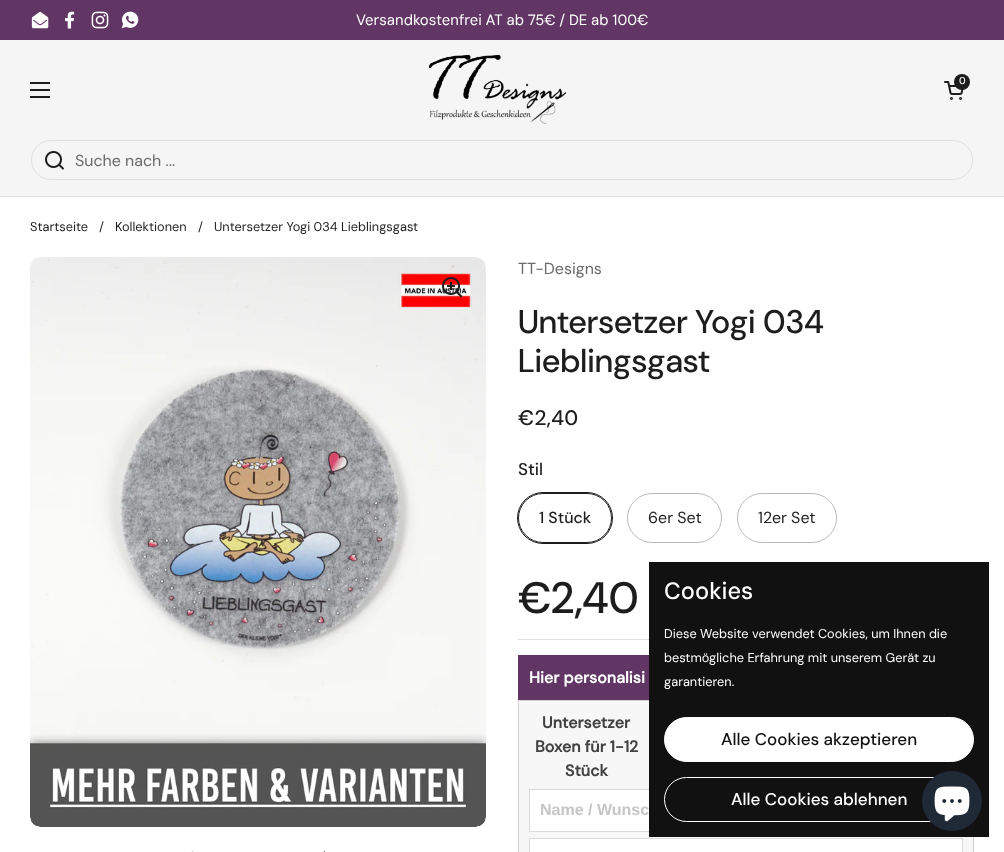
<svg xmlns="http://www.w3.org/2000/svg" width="1004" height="852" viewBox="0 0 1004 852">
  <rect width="100%" height="100%" fill="#fff"/>
  <path d="M0 0h1004v40H0z" fill="#613564"/>
  <image x="31" y="11" width="18" height="18" href="img/1.png"/>
  <image x="65" y="11" width="10" height="18" href="img/2.png"/>
  <image x="91" y="11" width="18" height="18" href="img/3.png"/>
  <image x="121" y="11" width="18" height="18" href="img/4.png"/>
  <path d="M0 40h1004v156H0z" fill="#f5f5f5"/>
  <image x="428" y="55" width="138" height="69" href="img/5.png"/>
  <image x="944" y="81" width="20" height="19" href="img/6.png"/>
  <circle cx="962" cy="82" r="8" fill="#1d1d1d"/>
  <path d="M30 82h20v2H30z" fill="#1d1d1d"/>
  <path d="M30 89h20v2H30z" fill="#1d1d1d"/>
  <path d="M30 96h20v2H30z" fill="#1d1d1d"/>
  <path d="M0 196h1004v1H0z" fill="#dfdfdf"/>
  <rect x="31.5" y="140.5" width="941" height="39" rx="19.5" fill="none" stroke="#dfdfdf"/>
  <image x="45" y="151" width="19" height="19" href="img/7.png"/>
  <image x="30" y="257" width="456" height="570" href="img/8.png"/>
  <image x="442" y="277" width="21" height="21" href="img/9.png"/>
  <image x="191" y="851" width="3" height="1" href="img/10.png"/>
  <image x="323" y="851" width="3" height="1" href="img/11.png"/>
  <rect x="517.5" y="492.5" width="95" height="51" rx="25.5" fill="none" stroke="#1d1d1d"/>
  <rect x="518.5" y="493.5" width="93" height="49" rx="24.5" fill="none" stroke="#1d1d1d"/>
  <rect x="627.5" y="493.5" width="94" height="49" rx="24.5" fill="none" stroke="#bbb"/>
  <rect x="737.5" y="493.5" width="99" height="49" rx="24.5" fill="none" stroke="#bbb"/>
  <path d="M518 639h131v1H518z" fill="#ddd"/>
  <path d="M518 655h131v45H518z" fill="#613564"/>
  <path d="M518.5 700.5h455v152H518.5z" fill="#f7f7f7" stroke="#d1d1d1"/>
  <path d="M530 790h119v41H530z" fill="#fff"/>
  <path d="M529.5 789.5h433v42H529.5z" fill="none" stroke="#dadada"/>
  <path d="M529.5 838.5h433v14H529.5z" fill="#fff" stroke="#dadada"/>
  <path d="M649 562h340v275H649z" fill="#111"/>
  <rect x="664.5" y="717.5" width="309" height="44" rx="22" fill="#fff" stroke="#fff"/>
  <rect x="664.5" y="777.5" width="309" height="44" rx="22" fill="none" stroke="#fff"/>
  <circle cx="952" cy="801" r="30" fill="#202a36"/>
  <image x="934" y="786" width="36" height="36" href="img/12.png"/>
  <text x="356" y="25" word-spacing="-0.25" font-family="DM Sans" font-size="14.9" fill="#fff">Versandkostenfrei AT ab 75€ / DE ab 100€</text>
  <text x="959" y="84" font-family="'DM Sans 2'" font-size="10" font-weight="500" fill="#fff">0</text>
  <text x="75" y="166" font-family="'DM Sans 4'" font-size="16" fill="#6a6a6a">Suche nach ...</text>
  <g font-family="'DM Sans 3'" font-size="12.75" fill="#1d1d1d">
    <text x="30" y="231">Startseite</text>
    <text x="99" y="231">/</text>
    <text x="115" y="231">Kollektionen</text>
    <text x="198" y="231">/</text>
    <text x="214" y="231">Untersetzer Yogi 034 Lieblingsgast</text>
  </g>
  <text x="518" y="274" font-family="'DM Sans 2'" font-size="16" fill="#6a6a6a">TT-Designs</text>
  <g font-family="DM Sans" font-size="32.75" font-weight="500" fill="#1d1d1d">
    <text x="518" y="333">Untersetzer Yogi 034</text>
    <text x="518" y="372">Lieblingsgast</text>
  </g>
  <text x="518" y="425" font-family="'DM Sans 2'" font-size="21" font-weight="500" fill="#1d1d1d">€2,40</text>
  <text x="518" y="475" font-family="'DM Sans 3'" font-size="17" font-weight="500" fill="#1d1d1d">Stil</text>
  <text x="539" y="523" font-family="'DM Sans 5'" font-size="16" font-weight="500" fill="#1d1d1d">1 Stück</text>
  <g font-family="'DM Sans 2'" font-size="16" fill="#1d1d1d">
    <text x="648" y="523">6er Set</text>
    <text x="758" y="523">12er Set</text>
  </g>
  <text x="518" y="613" font-family="'DM Sans 4'" font-size="44" font-weight="500" fill="#1d1d1d">€2,40</text>
  <text x="529" y="683" font-family="DM Sans" font-size="16" font-weight="bold" fill="#fff">Hier personalisi</text>
  <g font-family="DM Sans" font-size="16" font-weight="bold" fill="#424242">
    <text x="542" y="728">Untersetzer</text>
    <text x="535" y="752">Boxen für 1-12</text>
    <text x="565" y="776">Stück</text>
  </g>
  <text x="540" y="815" font-family="Liberation Sans" font-size="16" font-weight="bold" fill="#c6c6c6">Name / Wunsc</text>
  <text x="664" y="599" font-family="'DM Sans 2'" font-size="23.5" font-weight="500" fill="#fff">Cookies</text>
  <g font-family="'DM Sans 3'" font-size="12.75" fill="#fff">
    <text x="664" y="638">Diese Website verwendet Cookies, um Ihnen die</text>
    <text x="664" y="662">bestmögliche Erfahrung mit unserem Gerät zu</text>
    <text x="664" y="686">garantieren.</text>
  </g>
  <text x="721" y="745" font-family="'DM Sans 3'" font-size="17" font-weight="500" fill="#111">Alle Cookies akzeptieren</text>
  <text x="731" y="805" font-family="'DM Sans 3'" font-size="17" font-weight="500" fill="#fff">Alle Cookies ablehnen</text>
</svg>
